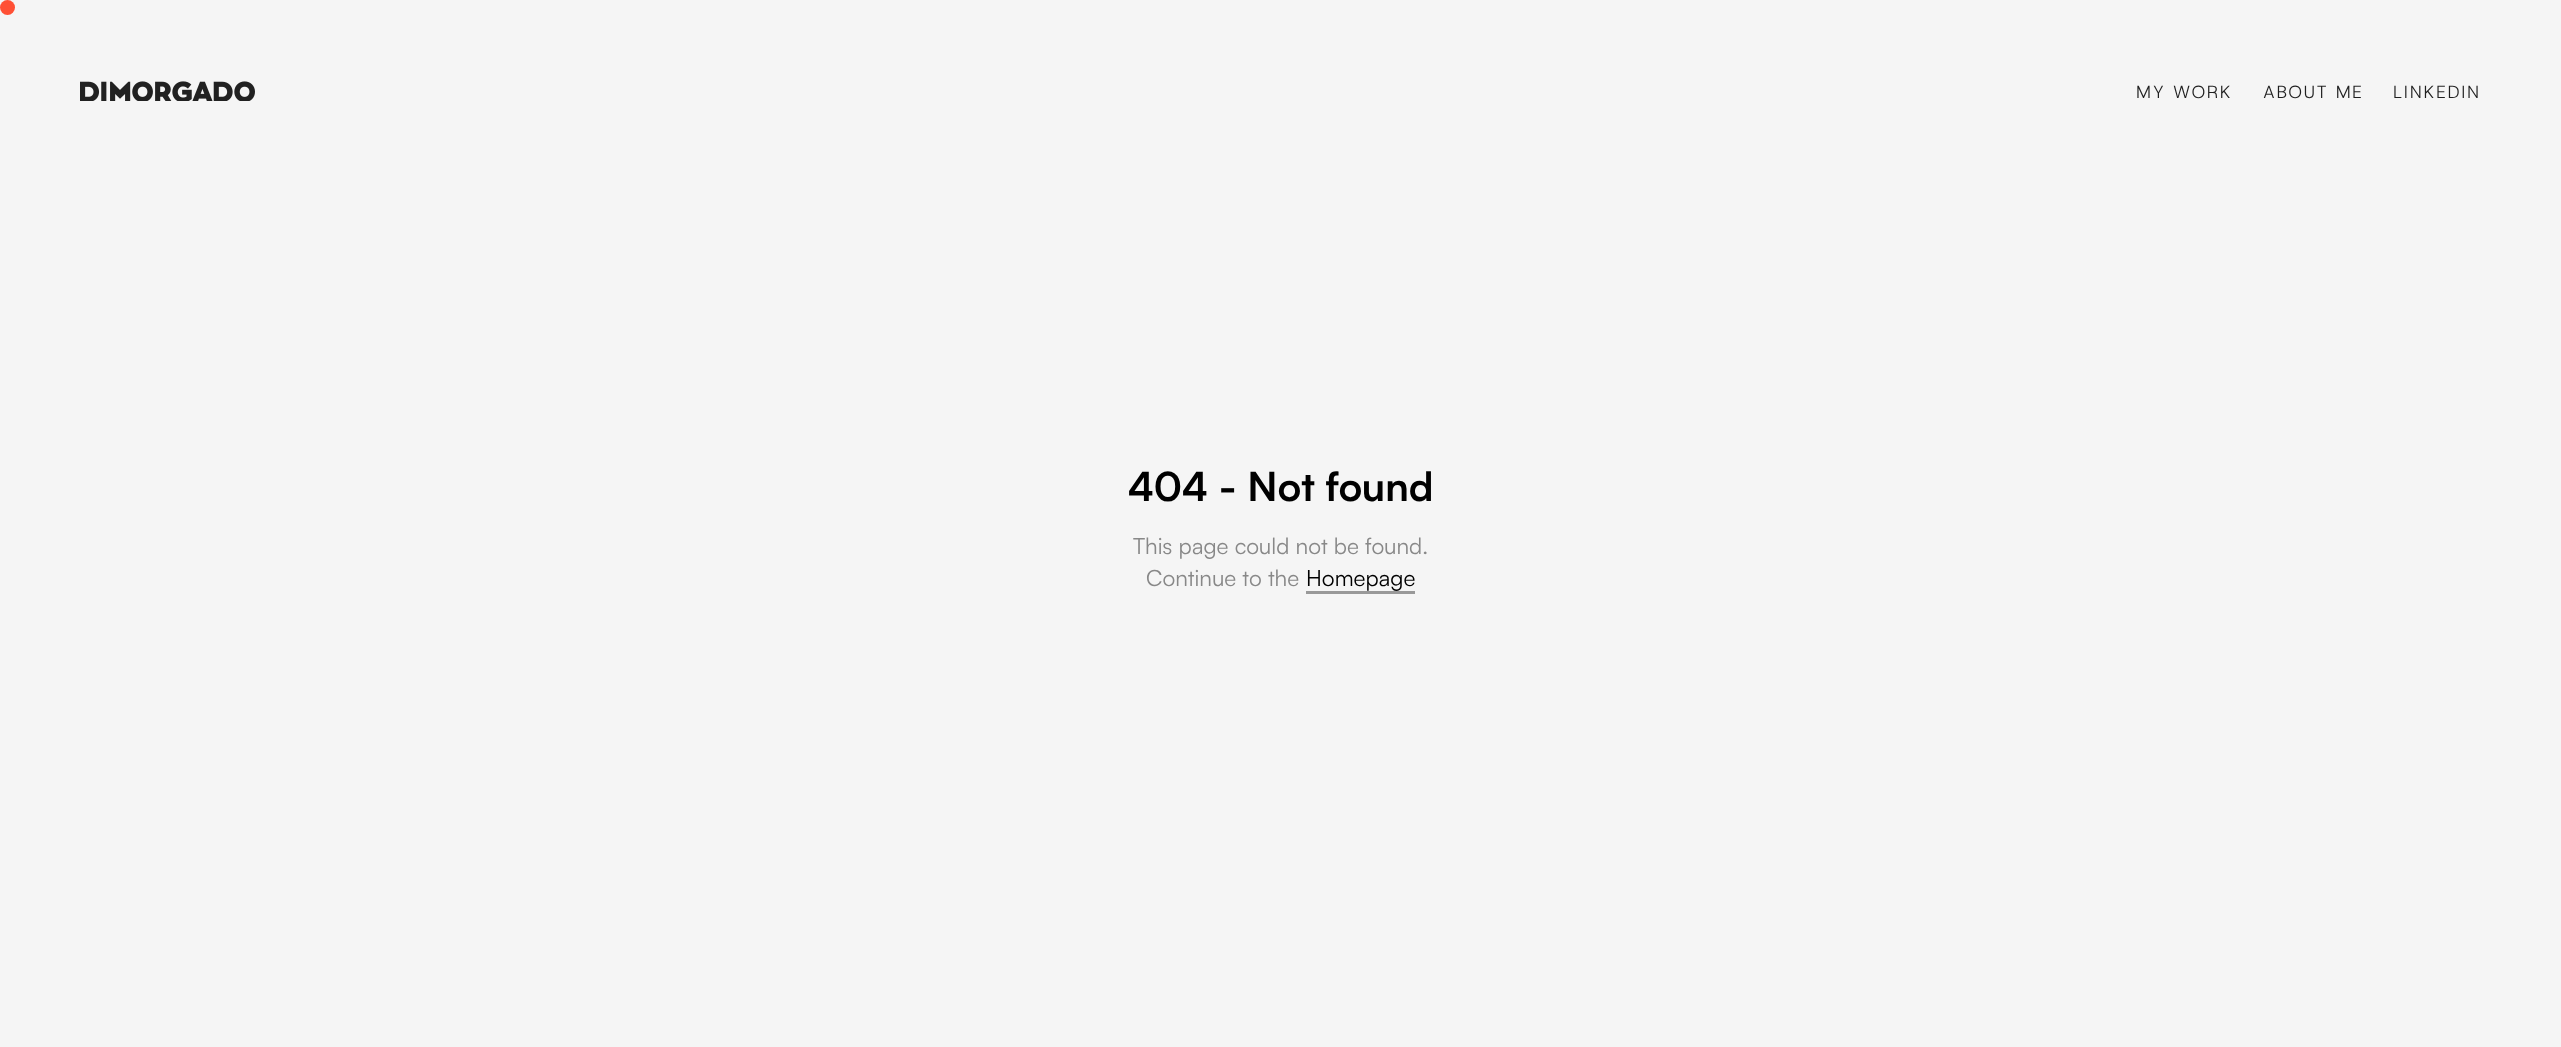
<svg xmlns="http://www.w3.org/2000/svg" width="2561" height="1047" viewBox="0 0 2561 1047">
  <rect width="100%" height="100%" fill="#f5f5f5"/>
  <circle cx="7.5" cy="7.5" r="7.5" fill="#ff5035"/>
  <image x="80" y="81" width="175" height="20" href="img/1.png"/>
  <path d="M1306 591h109v3H1306z" fill="#999"/>
  <g font-family="Host Grotesk" font-size="17.5" font-weight="300" letter-spacing="1.75" fill="#1f1f1f">
    <text x="2136" y="98">MY WORK</text>
    <text x="2263" y="98">ABOUT ME</text>
    <text x="2393" y="98">LINKEDIN</text>
  </g>
  <text x="1128" y="501" font-family="Satoshi" font-size="40" font-weight="bold" fill="#000">404 - Not found</text>
  <g font-family="Satoshi" font-size="22.5" fill="#888">
    <text x="1133" y="554">This page could not be found.</text>
    <text x="1146" y="586">Continue to the</text>
  </g>
  <text x="1306" y="586" font-family="Satoshi" font-size="22.5" fill="#000">Homepage</text>
</svg>
